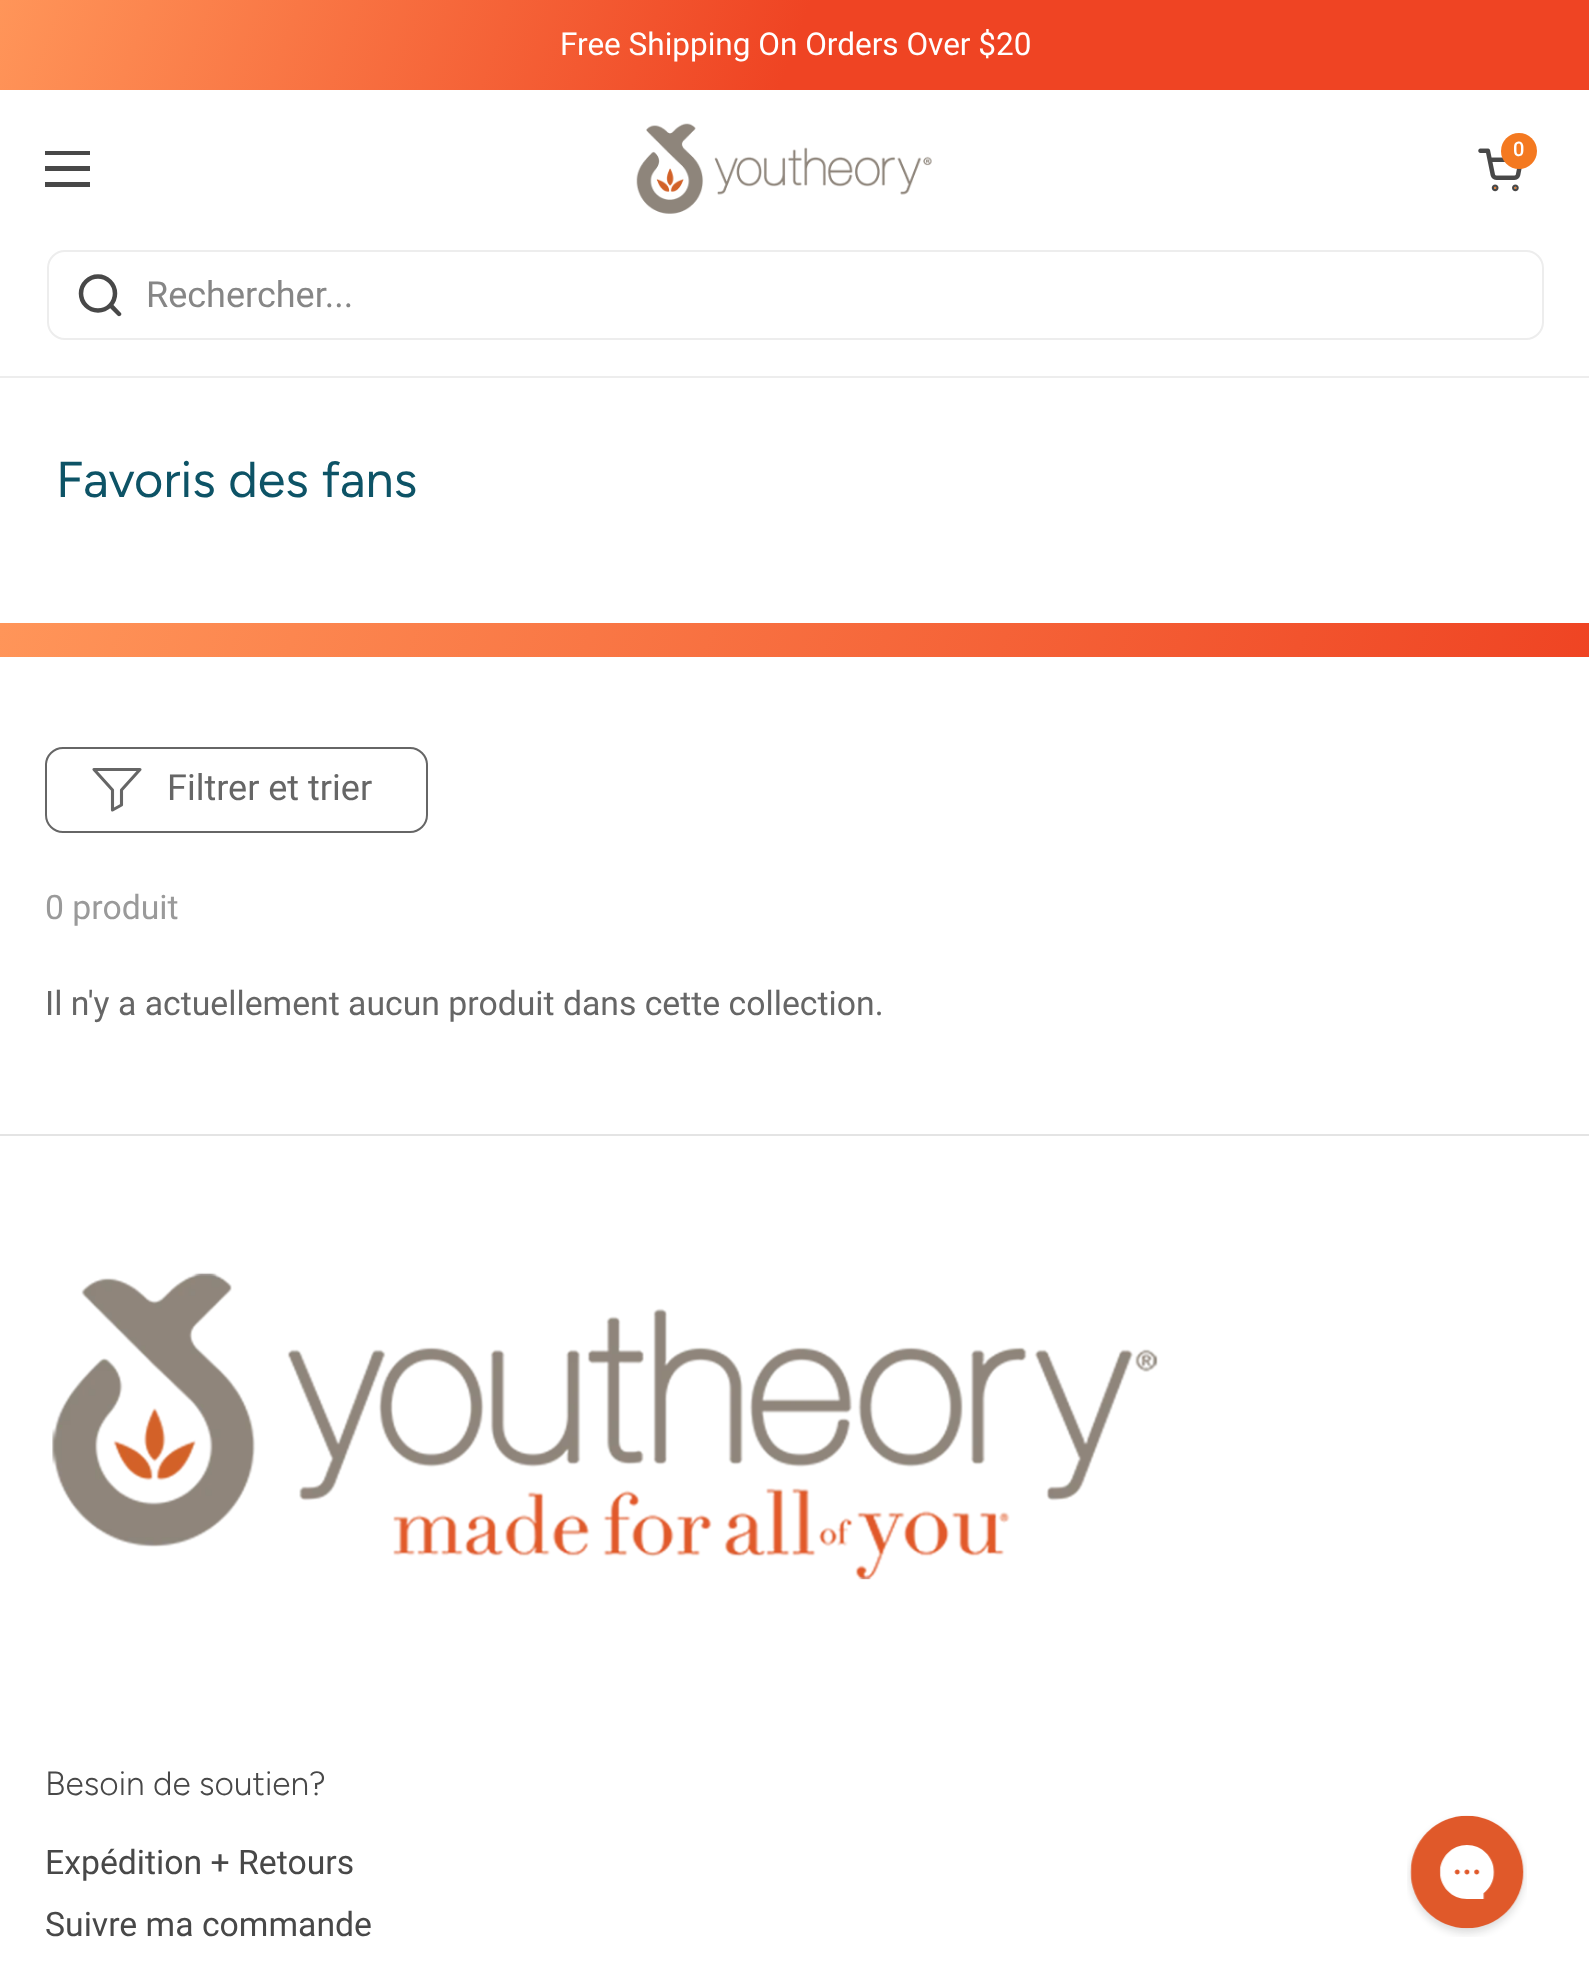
<svg xmlns="http://www.w3.org/2000/svg" width="1589" height="1987" viewBox="0 0 1589 1987">
  <defs>
    <linearGradient id="g1" gradientUnits="userSpaceOnUse" x1="79" y1="-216" x2="1512" y2="306"><stop offset="0" stop-color="#ff9559"/><stop offset="0.5" stop-color="#ef4423"/><stop offset="1" stop-color="#ef4423"/></linearGradient>
    <linearGradient id="g2" gradientUnits="userSpaceOnUse" x1="88" y1="383" x2="1503" y2="898"><stop offset="0" stop-color="#ff9559"/><stop offset="1" stop-color="#ef4423"/></linearGradient>
  </defs>
  <rect width="100%" height="100%" fill="#fff"/>
  <path d="M0 0h1589v90H0z" fill="url(#g1)"/>
  <image x="636" y="123" width="296" height="91" href="img/1.png"/>
  <image x="1478" y="148" width="44" height="44" href="img/2.png"/>
  <circle cx="1519" cy="151" r="18" fill="#f47920"/>
  <path d="M45 151h45v4H45z" fill="#484848"/>
  <path d="M45 166h45v5H45z" fill="#484848"/>
  <path d="M45 182h45v5H45z" fill="#484848"/>
  <path d="M0 376h1589v2H0z" fill="#ededed"/>
  <rect x="48" y="251" width="1495" height="88" rx="17" fill="none" stroke="#ededed" stroke-width="2"/>
  <circle cx="98" cy="293.5" r="17" fill="none" stroke="#484848" stroke-width="4.5"/>
  <path d="M113 304.5L111 303L108 306L109.5 307.5ZM117.5 315.5C119.5 317.5 123 314.5 120.5 312.5ZM109.5 307.5L117.5 315.5L120.5 312.5L113 304.5Z" fill="#484848"/>
  <path d="M0 623h1589v34H0z" fill="url(#g2)"/>
  <rect x="46" y="748" width="381" height="84" rx="17" fill="none" stroke="#666" stroke-width="2"/>
  <path d="M94 769.5H140L121.5 790V805L112.5 810V790Z" fill="none" stroke="#666" stroke-width="3.1" stroke-linecap="round" stroke-linejoin="round"/>
  <path d="M0 1134h1589v2H0z" fill="#e4e4e4"/>
  <image x="52" y="1272" width="1106" height="308" href="img/3.png"/>
  <image x="1407" y="1815" width="120" height="122" href="img/4.png"/>
  <text x="560" y="55" font-family="Roboto" font-size="31.5" fill="#fff">Free Shipping On Orders Over $20</text>
  <text x="1513" y="156" font-family="Roboto" font-size="20" font-weight="500" fill="#fff">0</text>
  <text x="146" y="307" font-family="Roboto" font-size="36" fill="#868686">Rechercher...</text>
  <text x="56" y="497" font-family="Figtree" font-size="50.5" fill="#0d5366">Favoris des fans</text>
  <text x="167" y="800" font-family="Roboto" font-size="36" fill="#666">Filtrer et trier</text>
  <text x="45" y="919" font-family="Roboto" font-size="33.75" fill="#9a9a9a">0 produit</text>
  <text x="45" y="1015" font-family="Roboto" font-size="33.75" fill="#666">Il n'y a actuellement aucun produit dans cette collection.</text>
  <text x="45" y="1795" font-family="Figtree" font-size="33.5" font-weight="300" fill="#484848">Besoin de soutien?</text>
  <g font-family="Roboto" font-size="33.75" fill="#484848">
    <text x="45" y="1874">Expédition + Retours</text>
    <text x="45" y="1936">Suivre ma commande</text>
  </g>
</svg>
